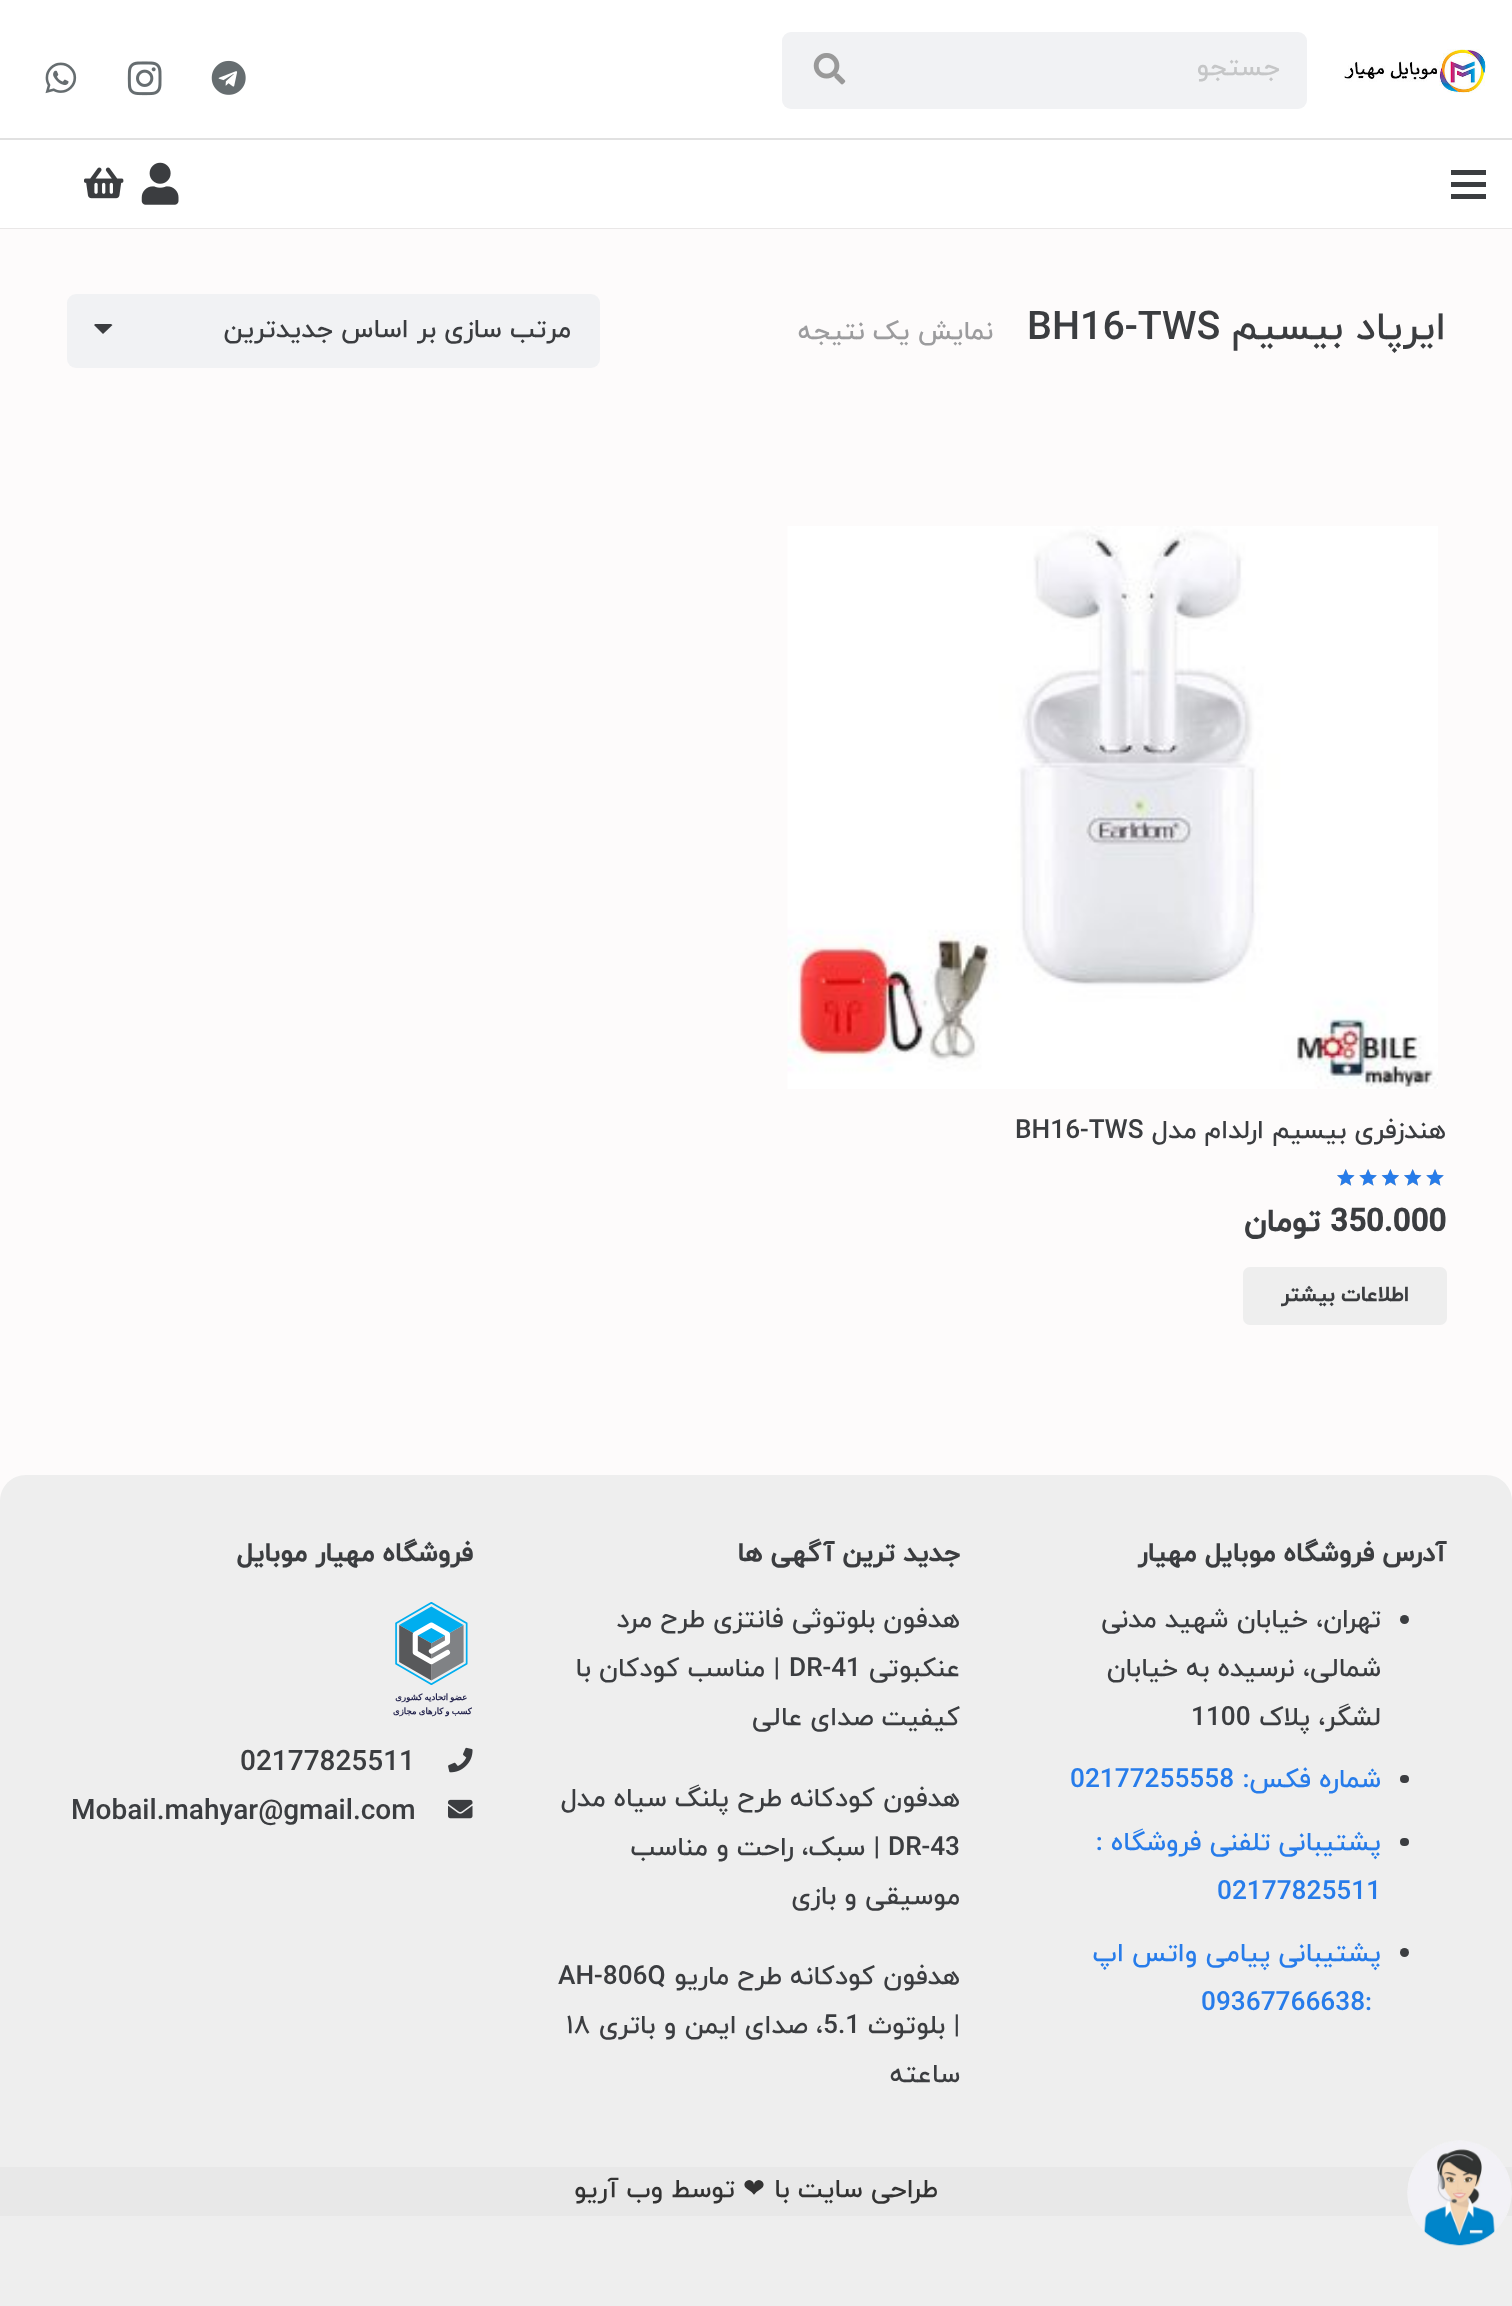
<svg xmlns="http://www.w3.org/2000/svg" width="1512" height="2306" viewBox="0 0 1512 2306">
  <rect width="100%" height="100%" fill="#eee"/>
  <path d="M0 229h1512v1272H0z" fill="#fdfbfb"/>
  <path d="M0 0h1512v138H0z" fill="#fff"/>
  <path d="M0 138h1512v2H0z" fill="#e1e1e1"/>
  <image x="1344" y="49" width="142" height="44" href="img/1.png"/>
  <rect x="782" y="32" width="525" height="77" rx="9" fill="#f1f2f4"/>
  <image x="813" y="53" width="33" height="32" href="img/2.png"/>
  <image x="211" y="60" width="35" height="35" href="img/3.png"/>
  <image x="127" y="61" width="35" height="35" href="img/4.png"/>
  <image x="45" y="62" width="32" height="32" href="img/5.png"/>
  <path d="M0 228h1512v1H0z" fill="#e9e7e7"/>
  <path d="M0 140h1512v88H0z" fill="#fff"/>
  <path d="M1451 182h35v5H1451z" fill="#3b3d40"/>
  <path d="M1451 170h35v5H1451z" fill="#3b3d40"/>
  <path d="M1451 194h35v5H1451z" fill="#3b3d40"/>
  <image x="141" y="162" width="38" height="43" href="img/6.png"/>
  <image x="84" y="167" width="40" height="32" href="img/7.png"/>
  <rect x="67" y="294" width="533" height="74" rx="9" fill="#f1f2f4"/>
  <path d="M96 324H110C111 324 112 324.5 112.5 325L103 334L94 325C94.5 324.5 95 324 96 324Z" fill="#3b3d40"/>
  <image x="787" y="526" width="651" height="563" href="img/8.png"/>
  <image x="1337" y="1169" width="107" height="17" href="img/9.png"/>
  <image x="1337" y="1169" width="107" height="17" href="img/10.png"/>
  <rect x="1243" y="1267" width="204" height="58" rx="7" fill="#eee"/>
  <path d="M26 1475H1486C1500.5 1475 1512 1486.5 1512 1501V2167H0V1501C0 1486.5 11.5 1475 26 1475Z" fill="#eee"/>
  <path d="M0 2167h1512v49H0z" fill="#e8e8e8"/>
  <image x="1407" y="2140" width="105" height="106" href="img/11.png"/>
  <circle cx="1404.5" cy="1619.5" r="4.5" fill="#3b3d40"/>
  <rect x="1400" y="1775" width="9" height="8" rx="4" fill="#3b3d40"/>
  <rect x="1400" y="1838" width="9" height="8" rx="4" fill="#3b3d40"/>
  <circle cx="1404.5" cy="1952.5" r="4.5" fill="#3b3d40"/>
  <image x="393" y="1602" width="79" height="115" href="img/12.png"/>
  <image x="448" y="1747" width="25" height="26" href="img/13.png"/>
  <image x="448" y="1799" width="25" height="20" href="img/14.png"/>
  <text x="1280" y="75" font-family="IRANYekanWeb" font-size="26.25" font-weight="500" direction="rtl" fill="#c5c6c7">جستجو</text>
  <text x="1446" y="339" font-family="IRANYekanWeb" font-size="39.5" font-weight="500" direction="rtl" fill="#3b3d40">ایرپاد بیسیم</text>
  <text x="1027" y="339" font-family="IRANYekanWeb" font-size="39.5" font-weight="500" fill="#3b3d40">BH16-TWS</text>
  <text x="993" y="339" font-family="IRANYekanWeb" font-size="26.25" font-weight="500" direction="rtl" fill="#9c9c9e">نمایش یک نتیجه</text>
  <g font-family="IRANYekanWeb" font-size="26.25" font-weight="500" direction="rtl" fill="#3b3d40">
    <text x="571" y="337">مرتب سازی بر اساس جدیدترین</text>
    <text x="1446" y="1138">هندزفری بیسیم ارلدام مدل</text>
  </g>
  <text x="1015" y="1138" font-family="IRANYekanWeb" font-size="26.25" font-weight="500" fill="#3b3d40">BH16-TWS</text>
  <text x="1330" y="1231" font-family="IRANYekanWeb" font-size="31.5" font-weight="bold" fill="#3b3d40">350.000</text>
  <text x="1320" y="1231" font-family="IRANYekanWeb" font-size="31.5" font-weight="bold" direction="rtl" fill="#3b3d40">تومان</text>
  <text x="1409" y="1301" font-family="IRANYekanWeb" font-size="21" font-weight="bold" direction="rtl" fill="#3b3d40">اطلاعات بیشتر</text>
  <text x="1446" y="1561" font-family="IRANYekanWeb" font-size="26.25" font-weight="bold" direction="rtl" fill="#3b3d40">آدرس فروشگاه موبایل مهیار</text>
  <g font-family="IRANYekanWeb" font-size="26.25" font-weight="500" direction="rtl" fill="#3b3d40">
    <text x="1381" y="1627">تهران، خیابان شهید مدنی</text>
    <text x="1381" y="1676">شمالی، نرسیده به خیابان</text>
    <text x="1381" y="1725">لشگر، پلاک</text>
  </g>
  <text x="1191" y="1725" font-family="IRANYekanWeb" font-size="26.25" font-weight="500" fill="#3b3d40">1100</text>
  <text x="1381" y="1787" font-family="IRANYekanWeb" font-size="26.25" font-weight="500" direction="rtl" fill="#277cea">شماره فکس:</text>
  <text x="1070" y="1787" font-family="IRANYekanWeb" font-size="26.25" font-weight="500" fill="#277cea">02177255558</text>
  <text x="1381" y="1850" font-family="IRANYekanWeb" font-size="26.25" font-weight="500" direction="rtl" fill="#277cea">پشتیبانی تلفنی فروشگاه :</text>
  <text x="1217" y="1899" font-family="IRANYekanWeb" font-size="26.25" font-weight="500" fill="#277cea">02177825511</text>
  <text x="1381" y="1961" font-family="IRANYekanWeb" font-size="26.25" font-weight="500" direction="rtl" fill="#277cea">پشتیبانی پیامی واتس اپ</text>
  <text x="1201" y="2010" font-family="IRANYekanWeb" font-size="26.25" font-weight="500" fill="#277cea">09367766638:</text>
  <text x="960" y="1561" font-family="IRANYekanWeb" font-size="26.25" font-weight="bold" direction="rtl" fill="#3b3d40">جدید ترین آگهی ها</text>
  <g font-family="IRANYekanWeb" font-size="26.25" font-weight="500" direction="rtl" fill="#3b3d40">
    <text x="960" y="1627">هدفون بلوتوثی فانتزی طرح مرد</text>
    <text x="960" y="1676">عنکبوتی</text>
  </g>
  <text x="789" y="1676" font-family="IRANYekanWeb" font-size="26.25" font-weight="500" fill="#3b3d40">DR-41</text>
  <g font-family="IRANYekanWeb" font-size="26.25" font-weight="500" direction="rtl" fill="#3b3d40">
    <text x="780" y="1676">| مناسب کودکان با</text>
    <text x="960" y="1725">کیفیت صدای عالی</text>
    <text x="960" y="1806">هدفون کودکانه طرح پلنگ سیاه مدل</text>
  </g>
  <text x="888" y="1855" font-family="IRANYekanWeb" font-size="26.25" font-weight="500" fill="#3b3d40">DR-43</text>
  <g font-family="IRANYekanWeb" font-size="26.25" font-weight="500" direction="rtl" fill="#3b3d40">
    <text x="880" y="1855">| سبک، راحت و مناسب</text>
    <text x="960" y="1904">موسیقی و بازی</text>
    <text x="960" y="1984">هدفون کودکانه طرح ماریو</text>
  </g>
  <text x="558" y="1984" font-family="IRANYekanWeb" font-size="26.25" font-weight="500" fill="#3b3d40">AH-806Q</text>
  <text x="960" y="2033" font-family="IRANYekanWeb" font-size="26.25" font-weight="500" direction="rtl" fill="#3b3d40">| بلوتوث</text>
  <text x="823" y="2033" font-family="IRANYekanWeb" font-size="26.25" font-weight="500" fill="#3b3d40">5.1</text>
  <text x="823" y="2033" font-family="IRANYekanWeb" font-size="26.25" font-weight="500" direction="rtl" fill="#3b3d40">، صدای ایمن و باتری</text>
  <text x="566" y="2033" font-family="IRANYekanWeb" font-size="26.25" font-weight="500" fill="#3b3d40">۱۸</text>
  <text x="960" y="2082" font-family="IRANYekanWeb" font-size="26.25" font-weight="500" direction="rtl" fill="#3b3d40">ساعته</text>
  <text x="473" y="1561" font-family="IRANYekanWeb" font-size="26.25" font-weight="bold" direction="rtl" fill="#3b3d40">فروشگاه مهیار موبایل</text>
  <g font-family="IRANYekanWeb" font-size="28" font-weight="500" fill="#3b3d40">
    <text x="240" y="1770">02177825511</text>
    <text x="71" y="1819">Mobail.mahyar@gmail.com</text>
  </g>
  <text x="938" y="2197" font-family="IRANYekanWeb" font-size="26.25" font-weight="500" direction="rtl" fill="#333">طراحی سایت با</text>
  <text x="765" y="2197" font-family="DejaVu Sans" font-size="26.25" direction="rtl" fill="#333">❤</text>
  <g font-family="IRANYekanWeb" font-size="26.25" font-weight="500" direction="rtl" fill="#333">
    <text x="735" y="2197">توسط</text>
    <text x="663" y="2197">وب آریو</text>
  </g>
</svg>
